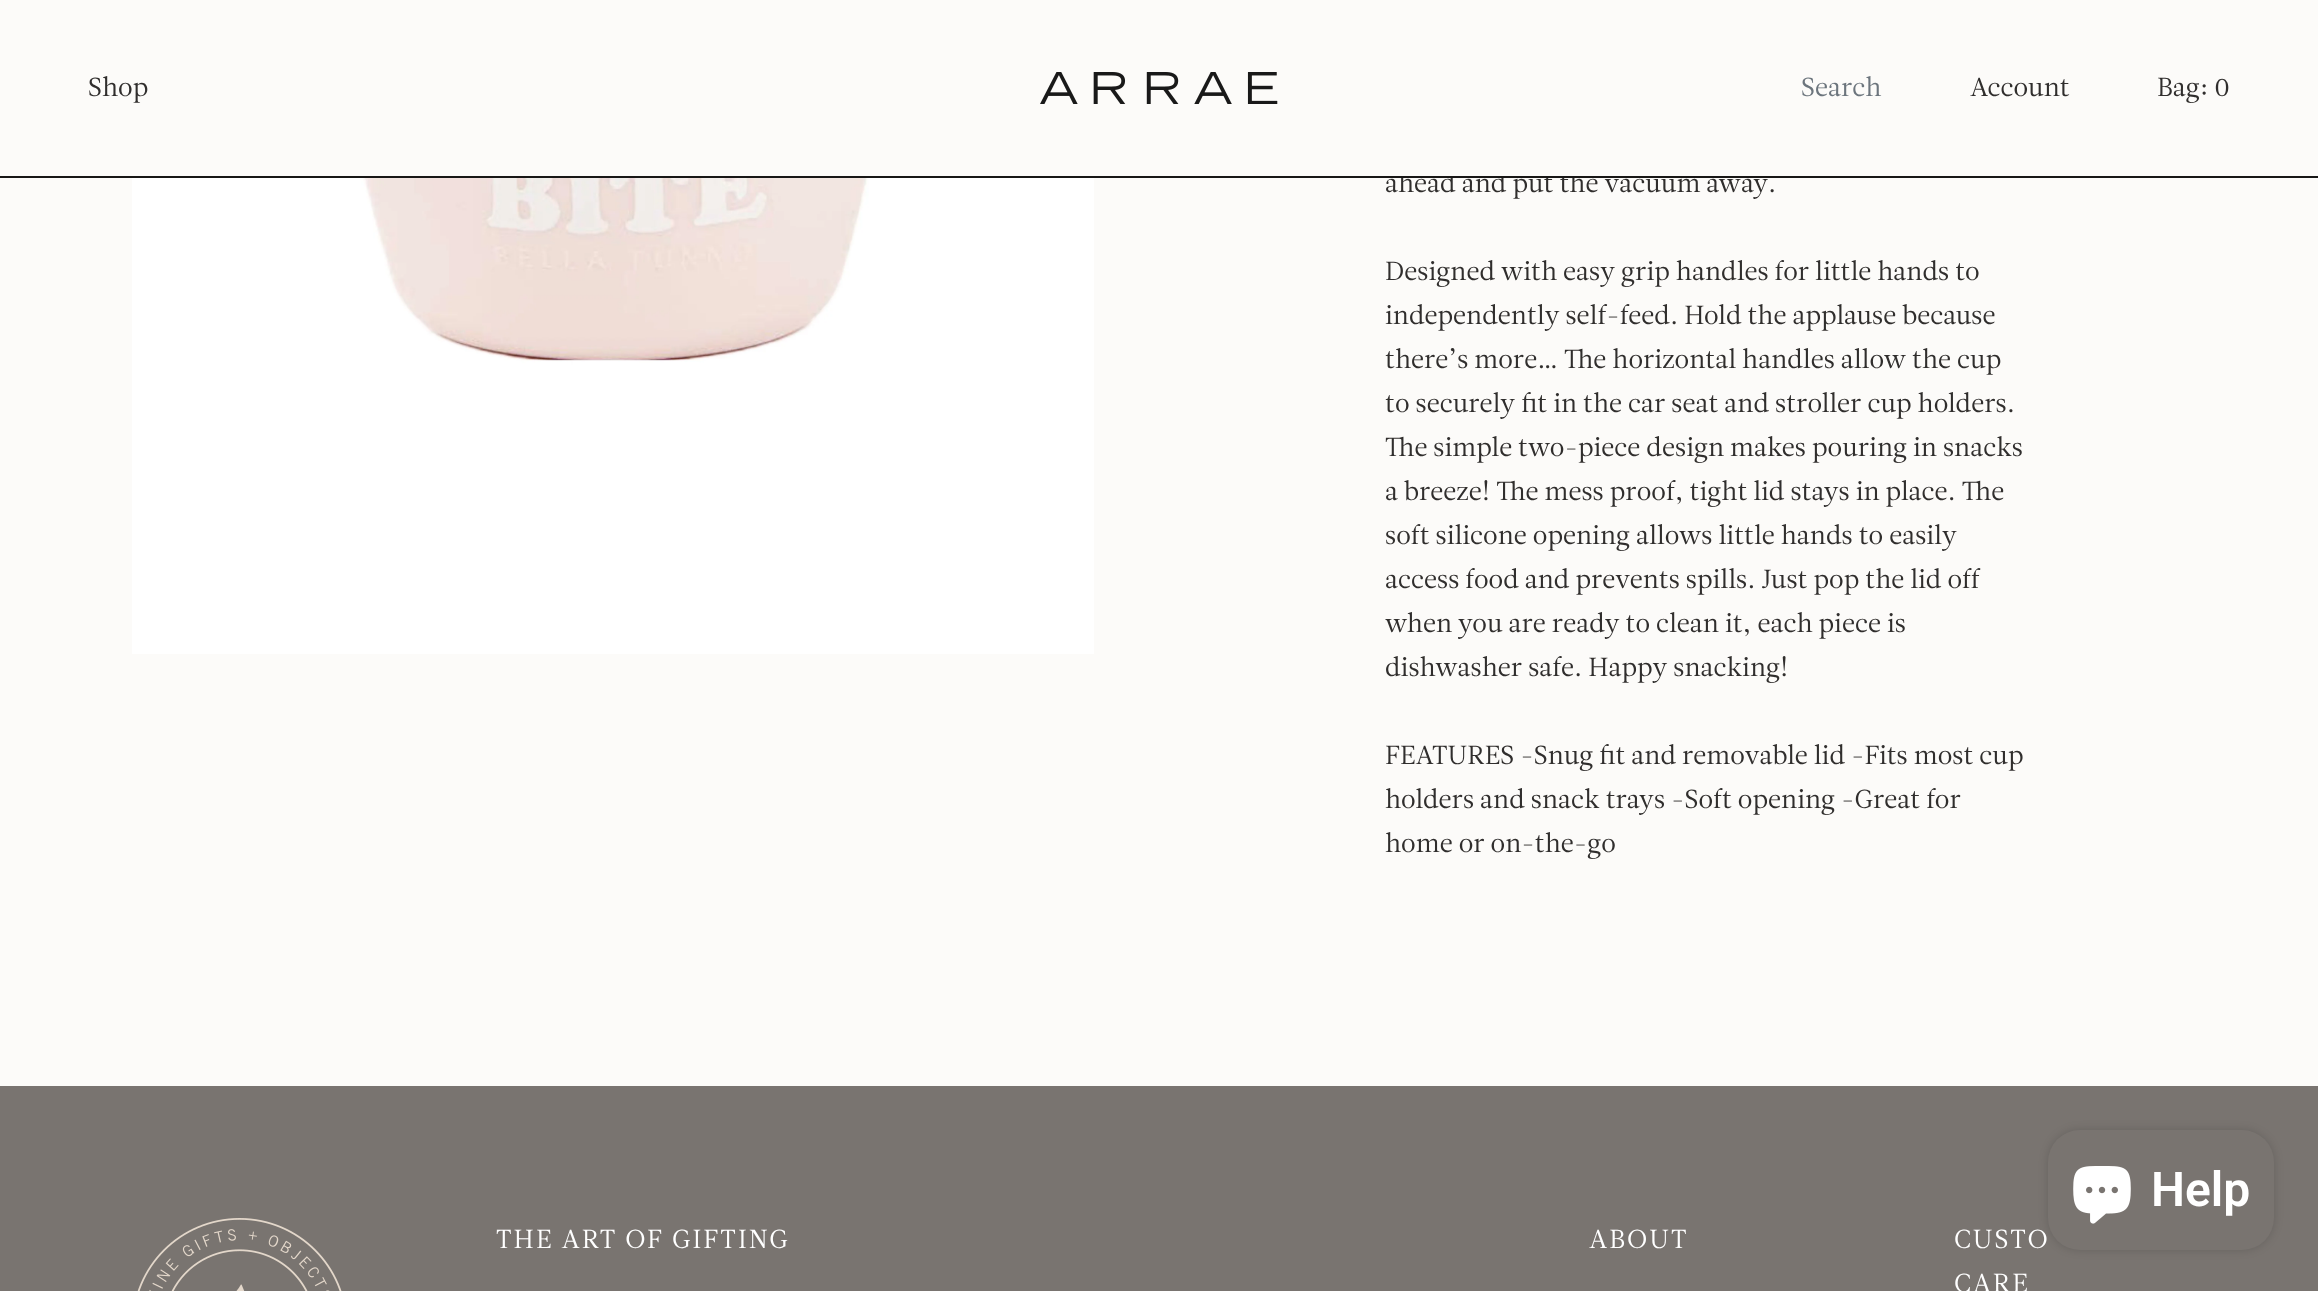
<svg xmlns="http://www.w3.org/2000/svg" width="2318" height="1291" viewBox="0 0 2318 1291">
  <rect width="100%" height="100%" fill="#fcfbf9"/>
  <image x="1040" y="72" width="238" height="32" href="img/1.png"/>
  <image x="132" y="178" width="962" height="476" href="img/2.png"/>
  <path d="M0 1086h2318v205H0z" fill="#797470"/>
  <rect x="2048" y="1130" width="226" height="120" rx="32" fill="#00000026" filter="blur(5px)"/>
  <rect x="2048" y="1130" width="226" height="120" rx="32" fill="#797470"/>
  <image x="2073" y="1166" width="58" height="58" href="img/3.png"/>
  <image x="137" y="1218" width="205" height="73" href="img/4.png"/>
  <text x="88" y="96" font-family="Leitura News" font-size="26" fill="#302e2d">Shop</text>
  <text x="1801" y="96" font-family="Leitura News" font-size="26" fill="#6c757d">Search</text>
  <g font-family="Leitura News" font-size="26" fill="#302e2d">
    <text x="1970" y="96">Account</text>
    <text x="2157" y="96">Bag: 0</text>
    <text x="1385" y="192">ahead and put the vacuum away.</text>
  </g>
  <path d="M0 176h2318v2H0z" fill="#181716"/>
  <path d="M1399 172h176v4H1399z" fill="#fcfbf9"/>
  <g font-family="Leitura News" font-size="26" fill="#302e2d">
    <text x="1385" y="280">Designed with easy grip handles for little hands to</text>
    <text x="1385" y="324">independently self-feed. Hold the applause because</text>
    <text x="1385" y="368">there’s more… The horizontal handles allow the cup</text>
    <text x="1385" y="412">to securely fit in the car seat and stroller cup holders.</text>
    <text x="1385" y="456">The simple two-piece design makes pouring in snacks</text>
    <text x="1385" y="500">a breeze! The mess proof, tight lid stays in place. The</text>
    <text x="1385" y="544">soft silicone opening allows little hands to easily</text>
    <text x="1385" y="588">access food and prevents spills. Just pop the lid off</text>
    <text x="1385" y="632">when you are ready to clean it, each piece is</text>
    <text x="1385" y="676">dishwasher safe. Happy snacking!</text>
    <text x="1385" y="764">FEATURES -Snug fit and removable lid -Fits most cup</text>
    <text x="1385" y="808">holders and snack trays -Soft opening -Great for</text>
    <text x="1385" y="852">home or on-the-go</text>
  </g>
  <text x="2151" y="1206" font-family="Roboto" font-size="48" font-weight="600" fill="#fff">Help</text>
  <g font-family="Leitura News" font-size="26" letter-spacing="2" fill="#fff">
    <text x="496" y="1248">THE ART OF GIFTING</text>
    <text x="1589" y="1248">ABOUT</text>
    <text x="1954" y="1248">CUSTO</text>
    <text x="1954" y="1292">CARE</text>
  </g>
</svg>
